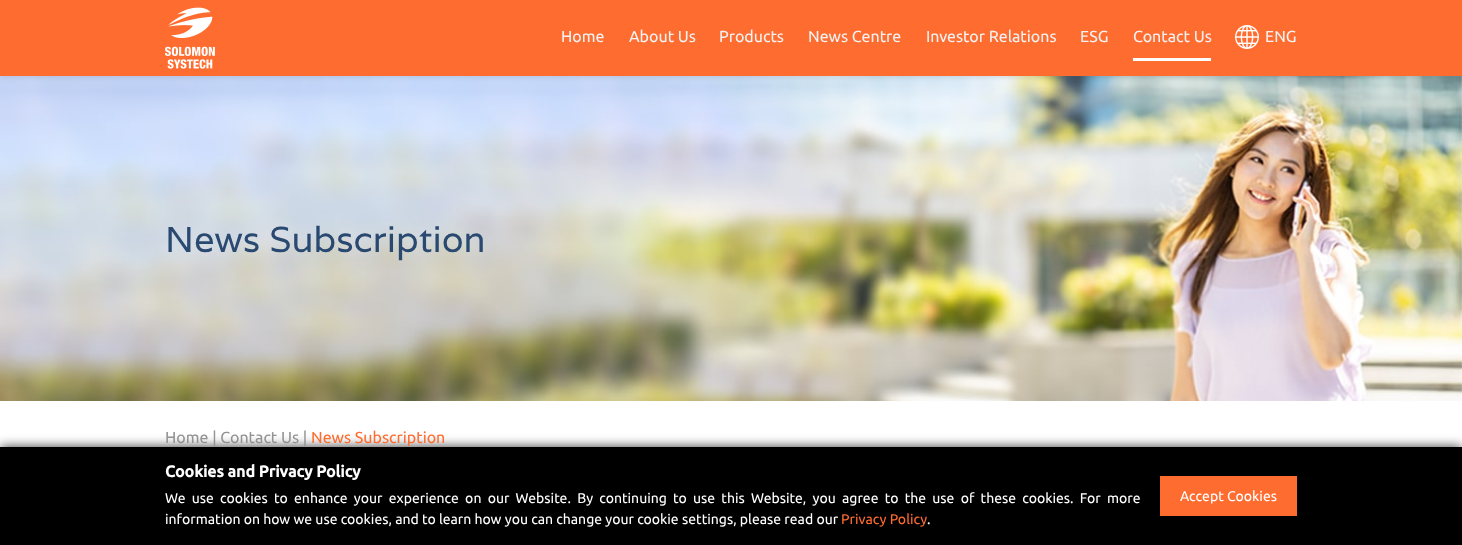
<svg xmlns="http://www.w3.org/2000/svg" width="1462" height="545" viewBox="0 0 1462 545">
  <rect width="100%" height="100%" fill="#fff"/>
  <image x="0" y="76" width="1462" height="325" href="img/3.png"/>
  <path d="M0 2h1462v76H0z" fill="#00000012" filter="blur(2px)"/>
  <path d="M0 0h1462v76H0z" fill="#ff6c2f"/>
  <image x="165" y="7" width="50" height="62" href="img/1.png"/>
  <path d="M1133 58h78v3H1133z" fill="#fff"/>
  <image x="1235" y="25" width="24" height="24" href="img/2.png"/>
  <path d="M0 447h1462v98H0z" fill="#000000cc" filter="blur(6px)"/>
  <path d="M0 447h1462v98H0z" fill="#000"/>
  <path d="M1160 476h137v40H1160z" fill="#ff6c2f"/>
  <g font-family="Ubuntu" font-size="16" fill="#f2f2f2">
    <text x="561" y="42">Home</text>
    <text x="629" y="42">About Us</text>
    <text x="719" y="42">Products</text>
    <text x="808" y="42">News Centre</text>
    <text x="926" y="42">Investor Relations</text>
    <text x="1080" y="42">ESG</text>
    <text x="1133" y="42">Contact Us</text>
    <text x="1265" y="42">ENG</text>
  </g>
  <text x="165" y="252" font-family="Varela" font-size="36" fill="#294971">News Subscription</text>
  <text x="165" y="443" font-family="Ubuntu" font-size="16" fill="#929292">Home | Contact Us |</text>
  <text x="311" y="443" font-family="Ubuntu" font-size="16" fill="#ff6c2f">News Subscription</text>
  <text x="165" y="477" font-family="Ubuntu" font-size="16" font-weight="bold" fill="#fff">Cookies and Privacy Policy</text>
  <g font-family="Ubuntu" font-size="14" fill="#fff">
    <text x="165" y="503" word-spacing="3">We use cookies to enhance your experience on our Website. By continuing to use this Website, you agree to the use of these cookies. For more</text>
    <text x="165" y="524">information on how we use cookies, and to learn how you can change your cookie settings, please read our</text>
  </g>
  <text x="841" y="524" font-family="Ubuntu" font-size="14" fill="#ff6c2f">Privacy Policy</text>
  <g font-family="Ubuntu" font-size="14" fill="#fff">
    <text x="927" y="524">.</text>
    <text x="1180" y="501">Accept Cookies</text>
  </g>
</svg>
